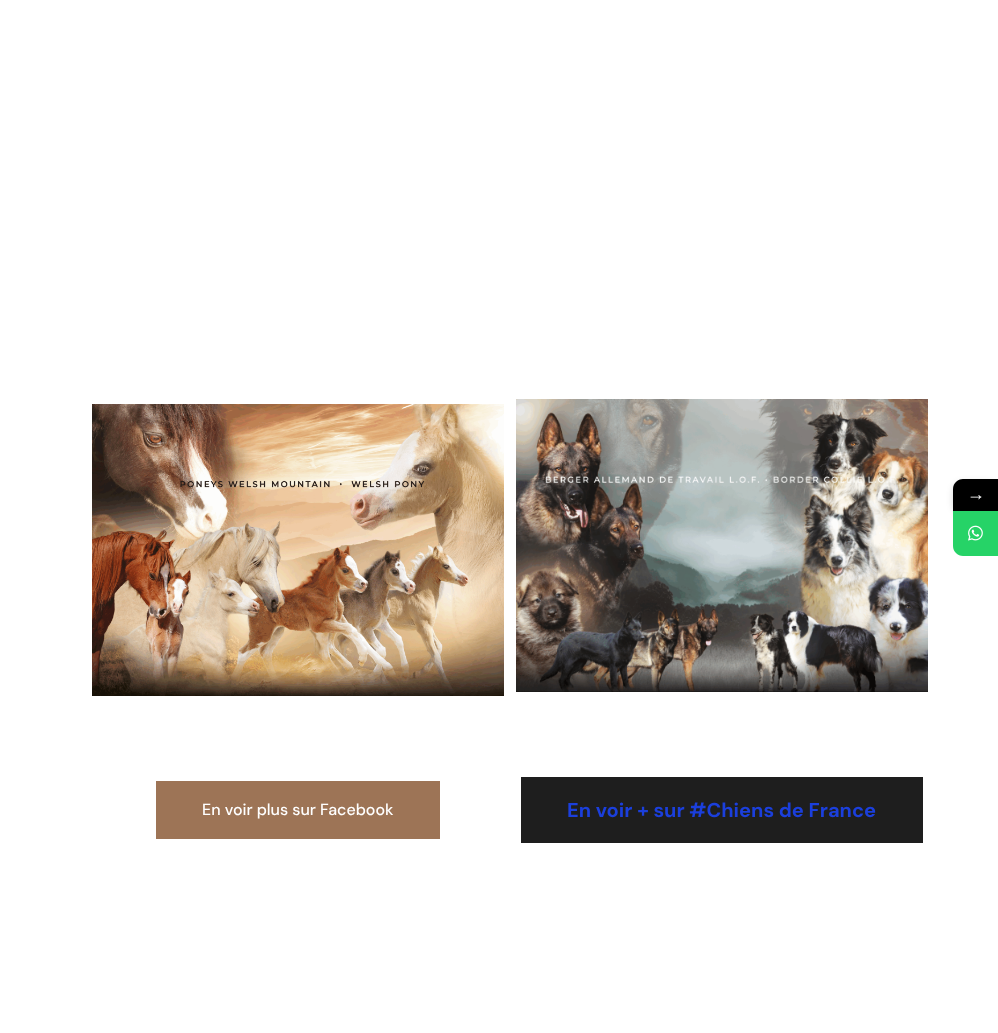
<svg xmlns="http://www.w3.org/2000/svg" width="998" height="1033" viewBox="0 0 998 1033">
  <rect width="100%" height="100%" fill="#fff"/>
  <rect x="953" y="482" width="45" height="32" rx="10" fill="#00000029" filter="blur(3px)"/>
  <path d="M963 479H998V511H953V489C953 483.5 957.5 479 963 479Z" fill="#000"/>
  <path d="M953 511H998V556H963C957.5 556 953 551.5 953 546Z" fill="#26d367"/>
  <image x="968" y="525" width="15" height="16" href="img/1.png"/>
  <image x="92" y="404" width="412" height="292" href="img/2.png"/>
  <path d="M156 781h284v58H156z" fill="#9d7456"/>
  <image x="516" y="399" width="412" height="293" href="img/3.png"/>
  <path d="M521 777h402v66H521z" fill="#1e1e1e"/>
  <text x="967" y="500" font-family="Liberation Serif" font-size="18" fill="#fff">→</text>
  <text x="202" y="815" font-family="DM Sans" font-size="16" font-weight="500" fill="#fff">En voir plus sur Facebook</text>
  <text x="567" y="817" font-family="DM Sans" font-size="20" font-weight="bold" fill="#1b3fdc">En voir + sur #Chiens de France</text>
</svg>
